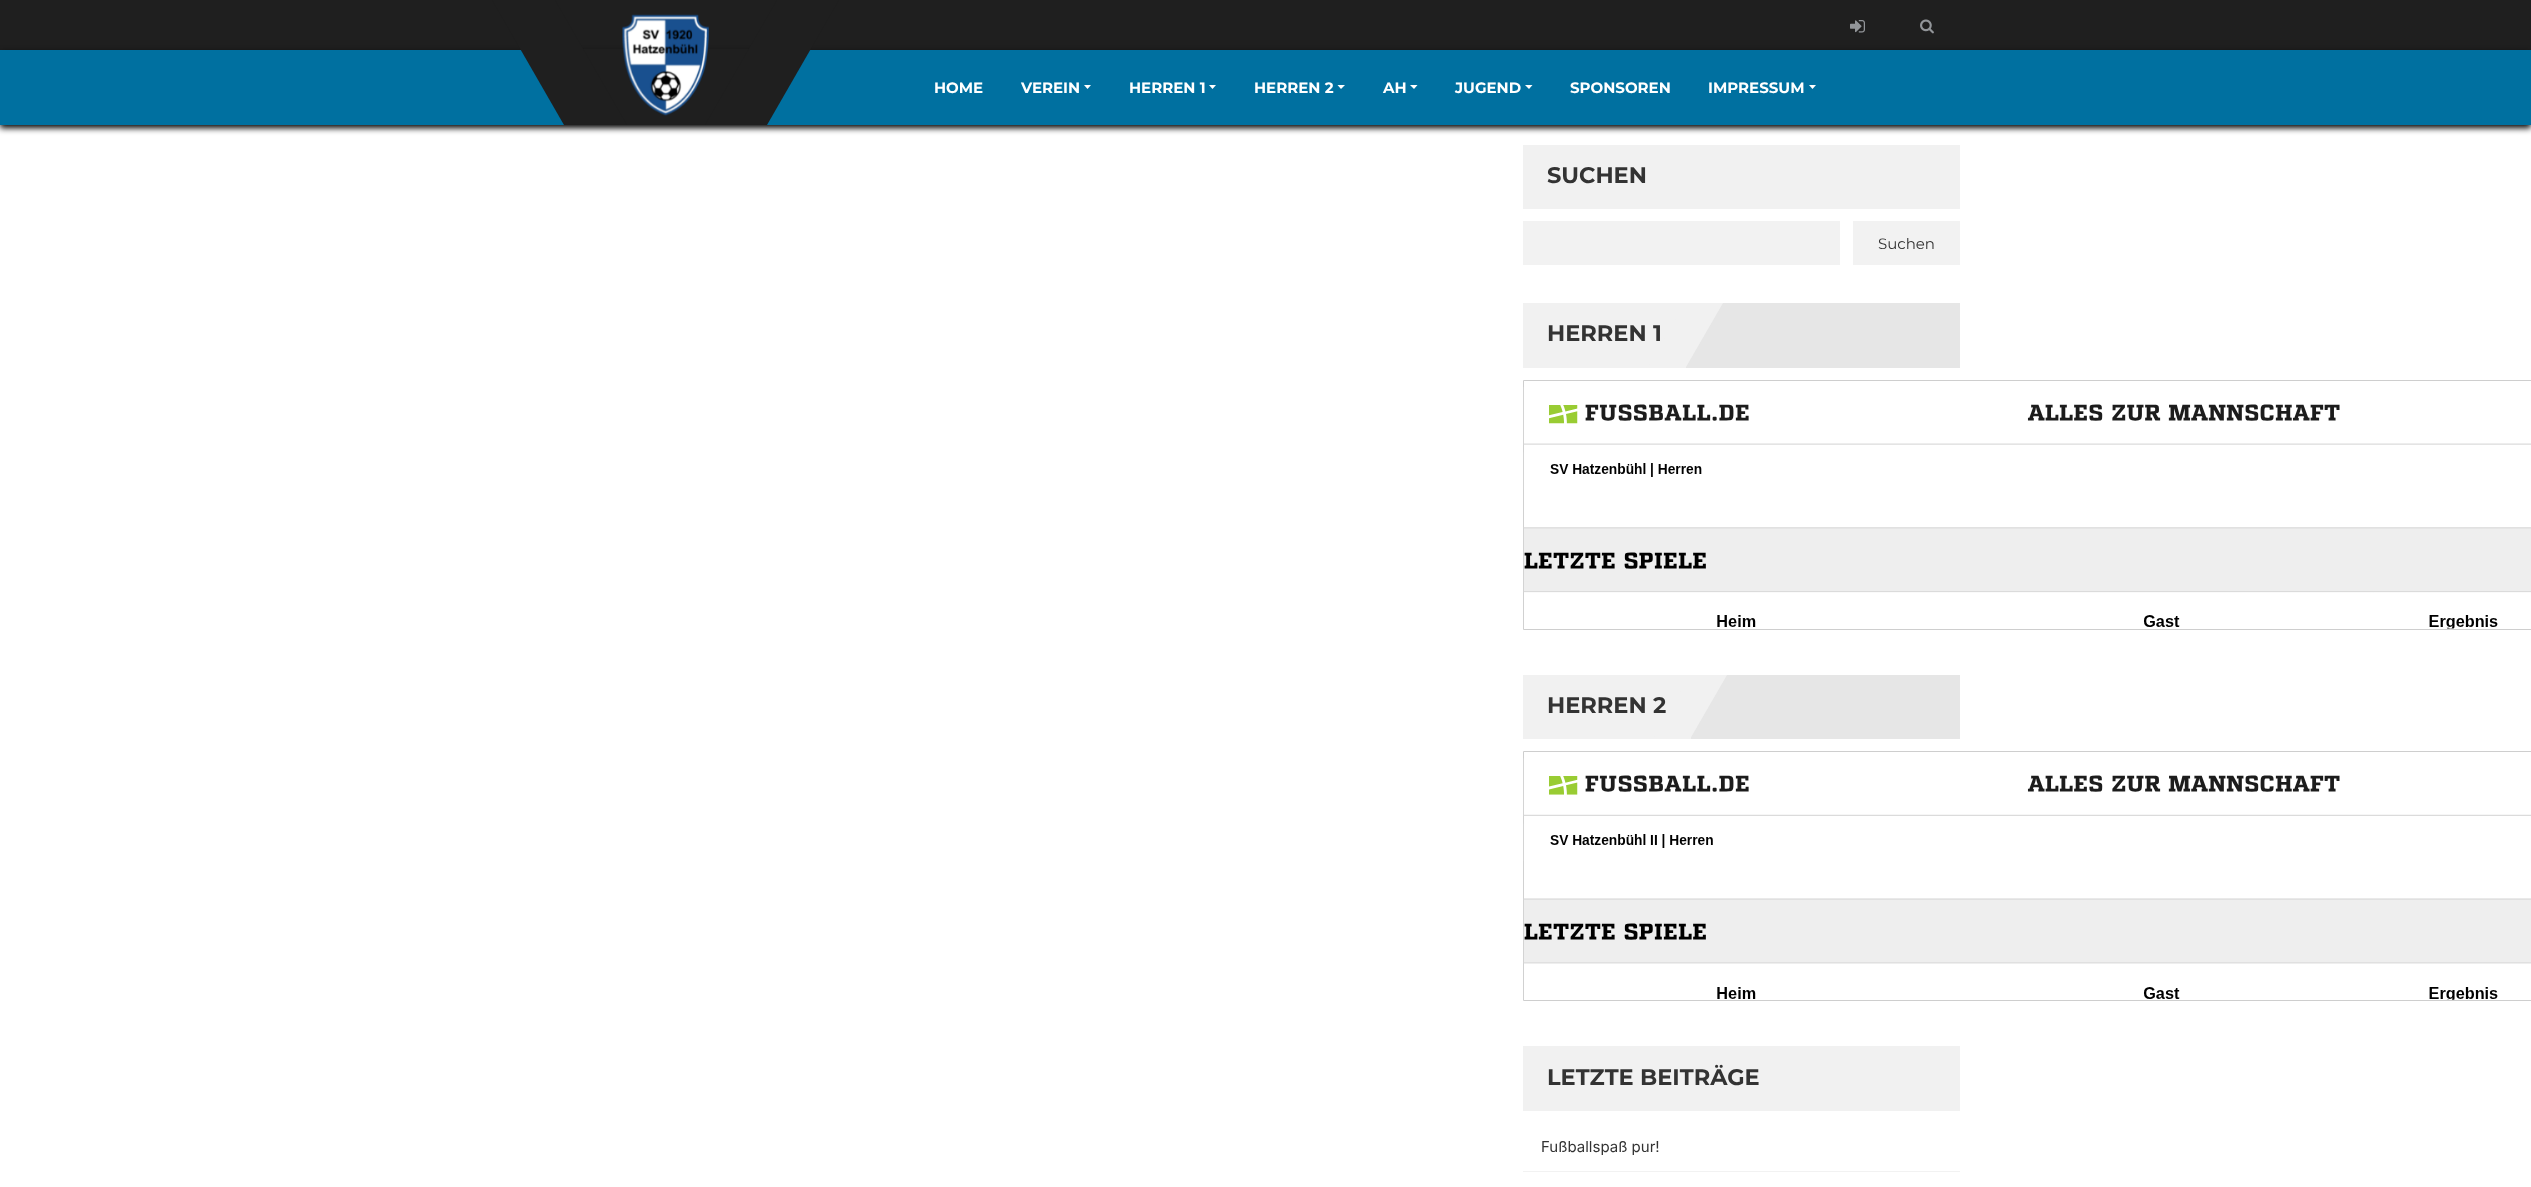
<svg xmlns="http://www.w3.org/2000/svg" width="2531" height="1187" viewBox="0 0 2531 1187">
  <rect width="100%" height="100%" fill="#fff"/>
  <path d="M0 0h2531v50H0z" fill="#1f1f1f"/>
  <path d="M0 53h2531v75H0z" fill="#000" filter="blur(3px)"/>
  <path d="M0 50h2531v75H0z" fill="#0070a0"/>
  <path d="M573 49h187v76H573z" fill="#1f1f1f"/>
  <path d="M492 0H555L627 125H564Z" fill="#1f1f1f"/>
  <path d="M777 0H839L767 125H705Z" fill="#1f1f1f"/>
  <image x="622" y="14" width="87" height="102" href="img/1.png"/>
  <image x="1850" y="20" width="15" height="13" href="img/2.png"/>
  <image x="1920" y="19" width="14" height="15" href="img/3.png"/>
  <path d="M1084 85H1091L1087.5 89Z" fill="#fff"/>
  <path d="M1209 85H1216L1212.5 89Z" fill="#fff"/>
  <path d="M1337.5 85H1345L1341 89Z" fill="#fff"/>
  <path d="M1410 85H1417.5L1414 89Z" fill="#fff"/>
  <path d="M1525 85H1532.5L1529 89Z" fill="#fff"/>
  <path d="M1809 85H1816L1812.5 89Z" fill="#fff"/>
  <path d="M1523 145h437v64H1523z" fill="#f1f1f1"/>
  <path d="M1523 221h317v44H1523z" fill="#f2f2f2"/>
  <path d="M1853 221h107v44H1853z" fill="#f2f2f2"/>
  <path d="M1686 303h274v65H1686z" fill="#e6e6e6"/>
  <path d="M1523 303h163v65H1523z" fill="#f1f1f1"/>
  <path d="M1523.5 380.5h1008v249H1523.5z" fill="none" stroke="#cecece"/>
  <image x="1523" y="387" width="1008" height="242" href="img/4.png"/>
  <path d="M1691 675h269v64H1691z" fill="#e6e6e6"/>
  <path d="M1523 675h168v64H1523z" fill="#f1f1f1"/>
  <path d="M1523.5 751.5h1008v249H1523.5z" fill="none" stroke="#cecece"/>
  <image x="1523" y="758" width="1008" height="242" href="img/5.png"/>
  <path d="M1523 1046h437v65H1523z" fill="#f1f1f1"/>
  <path d="M1523 1171h437v1H1523z" fill="#f2f2f2"/>
  <g font-family="Montserrat" font-size="15" font-weight="bold" fill="#fff">
    <text x="934" y="93">HOME</text>
    <text x="1021" y="93">VEREIN</text>
    <text x="1129" y="93">HERREN 1</text>
    <text x="1254" y="93">HERREN 2</text>
    <text x="1383" y="93">AH</text>
    <text x="1455" y="93">JUGEND</text>
    <text x="1570" y="93">SPONSOREN</text>
    <text x="1708" y="93">IMPRESSUM</text>
  </g>
  <text x="1547" y="183" font-family="Montserrat" font-size="22.5" font-weight="bold" fill="#333">SUCHEN</text>
  <text x="1878" y="249" font-family="Montserrat" font-size="15" fill="#333">Suchen</text>
  <text x="1547" y="341" font-family="Montserrat" font-size="22.5" font-weight="bold" fill="#333">HERREN 1</text>
  <path d="M1685 303H1723L1686 367H1648Z" fill="#f1f1f1"/>
  <text x="1547" y="713" font-family="Montserrat" font-size="22.5" font-weight="bold" fill="#333">HERREN 2</text>
  <path d="M1690 675H1727L1690 739H1653Z" fill="#f1f1f1"/>
  <text x="1547" y="1085" font-family="Montserrat" font-size="22.5" font-weight="bold" fill="#333">LETZTE BEITRÄGE</text>
  <text x="1541" y="1152" font-family="Inter" font-size="15" fill="#333">Fußballspaß pur!</text>
</svg>
